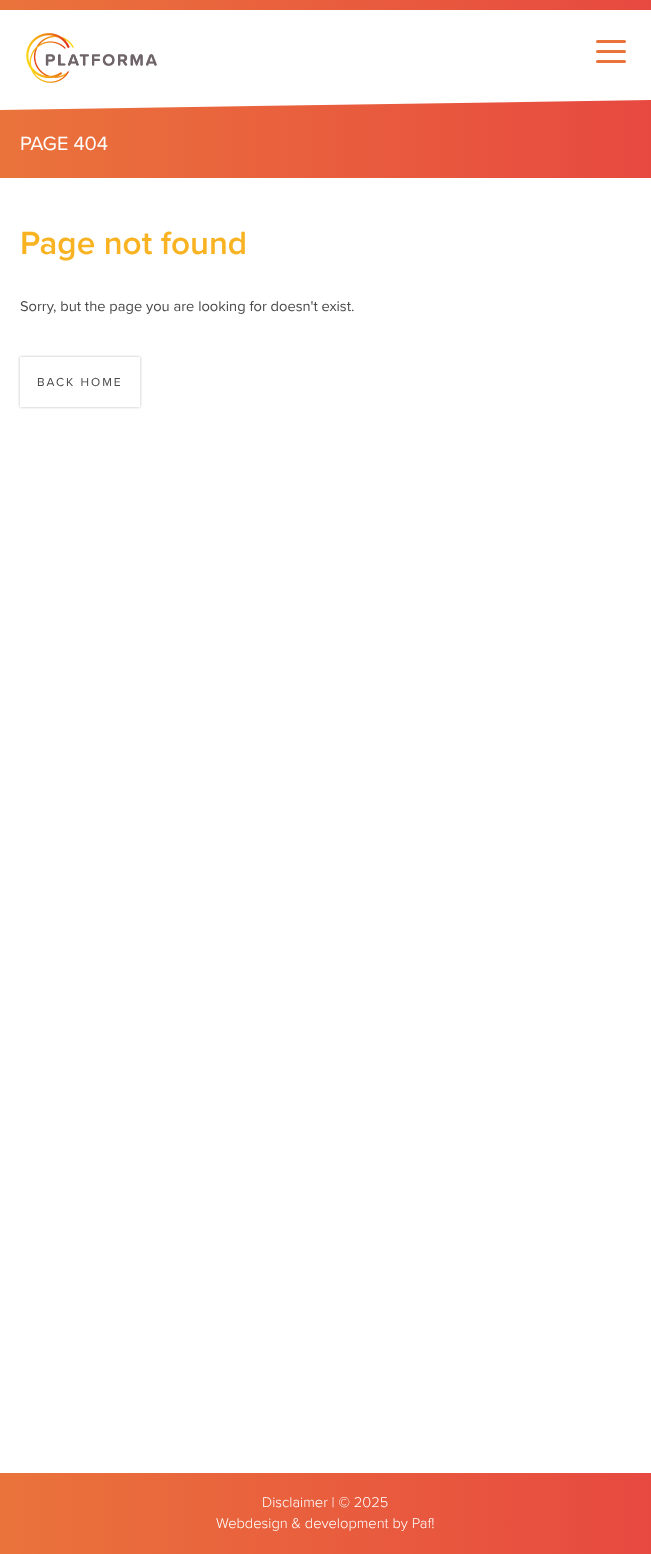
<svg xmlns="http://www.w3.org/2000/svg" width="651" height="1554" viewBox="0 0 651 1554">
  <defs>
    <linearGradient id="g1" gradientUnits="userSpaceOnUse" x1="0" y1="89" x2="651" y2="89"><stop offset="0" stop-color="#ea733b"/><stop offset="1" stop-color="#e74940"/></linearGradient>
    <clipPath id="clip1"><path d="M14 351H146V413H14ZM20 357H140V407H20Z" clip-rule="evenodd"/></clipPath>
    <linearGradient id="g2" gradientUnits="userSpaceOnUse" x1="0" y1="1514" x2="651" y2="1514"><stop offset="0" stop-color="#ea733b"/><stop offset="1" stop-color="#e74940"/></linearGradient>
  </defs>
  <rect width="100%" height="100%" fill="#fff"/>
  <path d="M0 0h651v178H0z" fill="url(#g1)"/>
  <path d="M0 10V110L651 100V10Z" fill="#fff"/>
  <image x="26" y="33" width="131" height="50" href="img/1.png"/>
  <rect x="596" y="40" width="30" height="3" rx="1.5" fill="#ea733b"/>
  <rect x="596" y="50" width="30" height="3" rx="1.5" fill="#ea733b"/>
  <rect x="596" y="60" width="30" height="3" rx="1.5" fill="#ea733b"/>
  <g clip-path="url(#clip1)">
    <path d="M20 357h120v50H20z" fill="#bbb" filter="blur(1.5px)"/>
  </g>
  <path d="M0 1473h651v81H0z" fill="url(#g2)"/>
  <text x="20" y="150" font-family="Proxima Nova" font-size="20" fill="#fff">PAGE 404</text>
  <text x="20" y="254" font-family="Proxima Nova" font-size="33.25" font-weight="600" fill="#f9b322">Page not found</text>
  <text x="20" y="311" font-family="Proxima Nova" font-size="14.7" fill="#4a4a4a">Sorry, but the page you are looking for doesn't exist.</text>
  <text x="37" y="386" font-family="Proxima Nova" font-size="12" letter-spacing="2" fill="#4a4a4a">BACK HOME</text>
  <g font-family="Proxima Nova" font-size="14.7" font-weight="300" fill="#fff">
    <text x="262" y="1507">Disclaimer | © 2025</text>
    <text x="216" y="1528">Webdesign &amp; development by Paf!</text>
  </g>
</svg>
